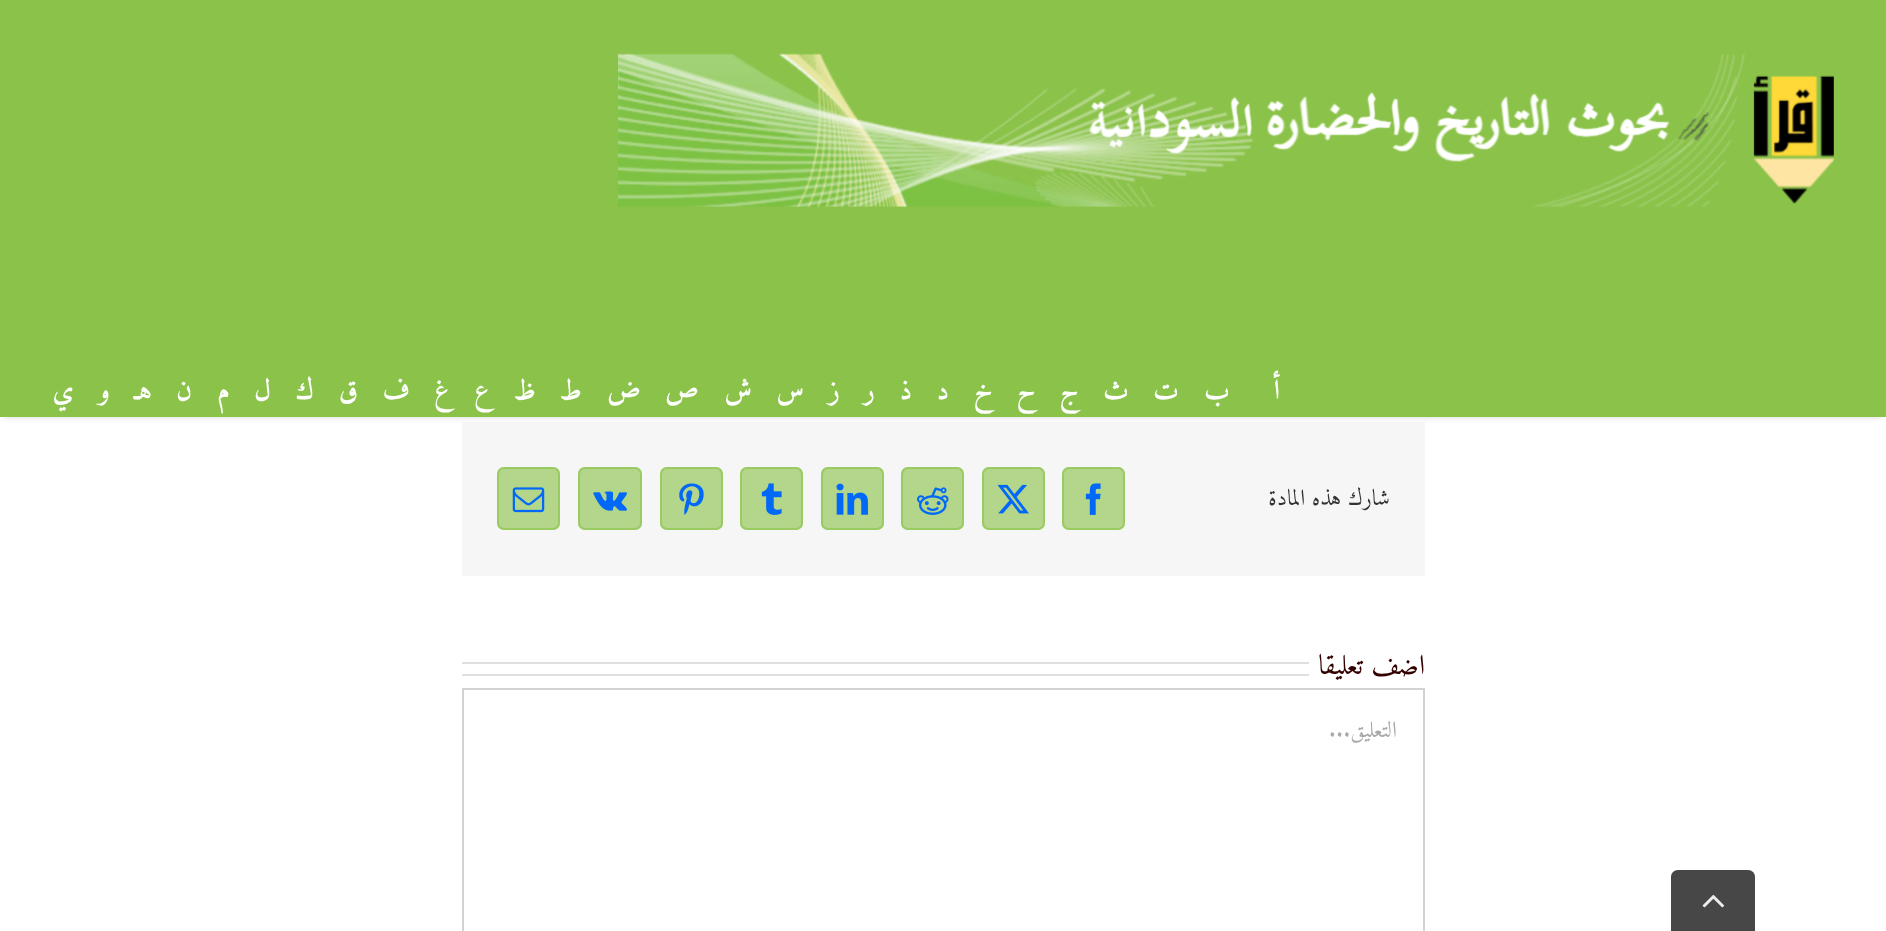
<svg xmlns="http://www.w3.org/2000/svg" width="1886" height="931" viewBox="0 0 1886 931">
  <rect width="100%" height="100%" fill="#fff"/>
  <path d="M462 422h963v154H462z" fill="#f6f6f6"/>
  <path d="M5 12h1876v406H5z" fill="#0000001f" filter="blur(2.5px)"/>
  <path d="M0 0h1886v417H0z" fill="#8bc34a"/>
  <image x="618" y="53" width="1216" height="154" href="img/1.png"/>
  <rect x="1062" y="467" width="63" height="63" rx="7" fill="#b3d68a"/>
  <rect x="1063" y="468" width="61" height="61" rx="6" fill="none" stroke="#8bc34aa1" stroke-width="2"/>
  <image x="1085" y="483" width="16" height="32" href="img/2.png"/>
  <rect x="982" y="467" width="63" height="63" rx="7" fill="#b3d68a"/>
  <rect x="983" y="468" width="61" height="61" rx="6" fill="none" stroke="#8bc34aa1" stroke-width="2"/>
  <image x="997" y="484" width="32" height="30" href="img/3.png"/>
  <rect x="901" y="467" width="63" height="63" rx="7" fill="#b3d68a"/>
  <rect x="902" y="468" width="61" height="61" rx="6" fill="none" stroke="#8bc34aa1" stroke-width="2"/>
  <image x="917" y="487" width="32" height="28" href="img/4.png"/>
  <rect x="821" y="467" width="63" height="63" rx="7" fill="#b3d68a"/>
  <rect x="822" y="468" width="61" height="61" rx="6" fill="none" stroke="#8bc34aa1" stroke-width="2"/>
  <image x="836" y="483" width="32" height="32" href="img/5.png"/>
  <rect x="740" y="467" width="63" height="63" rx="7" fill="#b3d68a"/>
  <rect x="741" y="468" width="61" height="61" rx="6" fill="none" stroke="#8bc34aa1" stroke-width="2"/>
  <image x="761" y="483" width="21" height="32" href="img/6.png"/>
  <rect x="660" y="467" width="63" height="63" rx="7" fill="#b3d68a"/>
  <rect x="661" y="468" width="61" height="61" rx="6" fill="none" stroke="#8bc34aa1" stroke-width="2"/>
  <image x="679" y="483" width="25" height="32" href="img/7.png"/>
  <rect x="578" y="467" width="64" height="63" rx="7" fill="#b3d68a"/>
  <rect x="579" y="468" width="62" height="61" rx="6" fill="none" stroke="#8bc34aa1" stroke-width="2"/>
  <image x="593" y="491" width="34" height="20" href="img/8.png"/>
  <rect x="497" y="467" width="63" height="63" rx="7" fill="#b3d68a"/>
  <rect x="498" y="468" width="61" height="61" rx="6" fill="none" stroke="#8bc34aa1" stroke-width="2"/>
  <image x="512" y="487" width="33" height="26" href="img/9.png"/>
  <path d="M462 662h847v2H462z" fill="#e0dede"/>
  <path d="M462 674h847v2H462z" fill="#e0dede"/>
  <path d="M463 689h961v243H463z" fill="none" stroke="#d2d2d2" stroke-width="2"/>
  <path d="M1678 870H1748C1752 870 1755 873 1755 877V931H1671V877C1671 873 1674 870 1678 870Z" fill="#474747"/>
  <image x="1702" y="894" width="22" height="14" href="img/10.png"/>
  <g font-family="Amiri" font-size="28" font-weight="bold" direction="rtl" fill="#fff">
    <text x="1280" y="399">أ</text>
    <text x="1230" y="399">ب</text>
    <text x="1179" y="399">ت</text>
    <text x="1129" y="399">ث</text>
    <text x="1078" y="399">ج</text>
    <text x="1035" y="399">ح</text>
    <text x="992" y="399">خ</text>
    <text x="949" y="399">د</text>
    <text x="912" y="399">ذ</text>
    <text x="875" y="399">ر</text>
    <text x="840" y="399">ز</text>
    <text x="804" y="399">س</text>
    <text x="752" y="399">ش</text>
    <text x="699" y="399">ص</text>
    <text x="641" y="399">ض</text>
    <text x="582" y="399">ط</text>
    <text x="536" y="399">ظ</text>
    <text x="489" y="399">ع</text>
    <text x="449" y="399">غ</text>
    <text x="410" y="399">ف</text>
    <text x="358" y="399">ق</text>
    <text x="314" y="399">ك</text>
    <text x="271" y="399">ل</text>
    <text x="230" y="399">م</text>
    <text x="192" y="399">ن</text>
    <text x="152" y="399">هـ</text>
    <text x="110" y="399">و</text>
    <text x="74" y="399">ي</text>
  </g>
  <text x="1390" y="505" font-family="Amiri" font-size="22.75" direction="rtl" fill="#333">شارك هذه المادة</text>
  <text x="1425" y="674" font-family="Amiri" font-size="28" direction="rtl" fill="#300">اضف تعليقا</text>
  <text x="1397" y="737" font-family="Amiri" font-size="22.75" direction="rtl" fill="#aaa9a9">التعليق...</text>
</svg>
